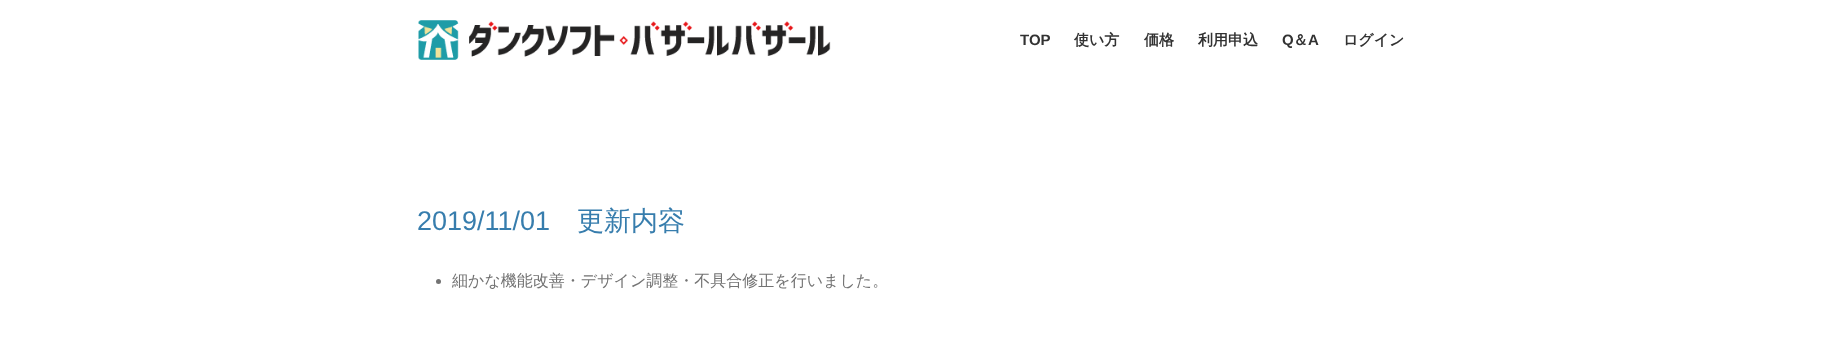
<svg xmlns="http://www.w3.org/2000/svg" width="1833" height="339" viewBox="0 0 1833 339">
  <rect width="100%" height="100%" fill="#fff"/>
  <image x="418" y="20" width="413" height="40" href="img/1.png"/>
  <circle cx="438.5" cy="281.5" r="2.5" fill="#737373"/>
  <text x="1020" y="45" font-family="Liberation Sans" font-size="15" font-weight="bold" fill="#323232">TOP</text>
  <g font-family="WenQuanYi Zen Hei" font-size="15" font-weight="bold" fill="#323232">
    <text x="1074" y="45">使い方</text>
    <text x="1144" y="45">価格</text>
    <text x="1198" y="45">利用申込</text>
  </g>
  <text x="1282" y="45" font-family="Liberation Sans" font-size="15" font-weight="bold" fill="#323232">Q</text>
  <text x="1293" y="45" font-family="WenQuanYi Zen Hei" font-size="15" font-weight="bold" fill="#323232">＆</text>
  <text x="1308" y="45" font-family="Liberation Sans" font-size="15" font-weight="bold" fill="#323232">A</text>
  <text x="1343" y="45" font-family="WenQuanYi Zen Hei" font-size="15" font-weight="bold" fill="#323232">ログイン</text>
  <text x="417" y="230" font-family="Liberation Sans" font-size="27" fill="#377dad">2019/11/01</text>
  <text x="577" y="230" font-family="WenQuanYi Zen Hei" font-size="27" font-weight="500" fill="#377dad">更新内容</text>
  <text x="452" y="286" font-family="WenQuanYi Zen Hei" font-size="16" font-weight="500" fill="#737373">細かな機能改善・デザイン調整・不具合修正を行いました。</text>
</svg>
